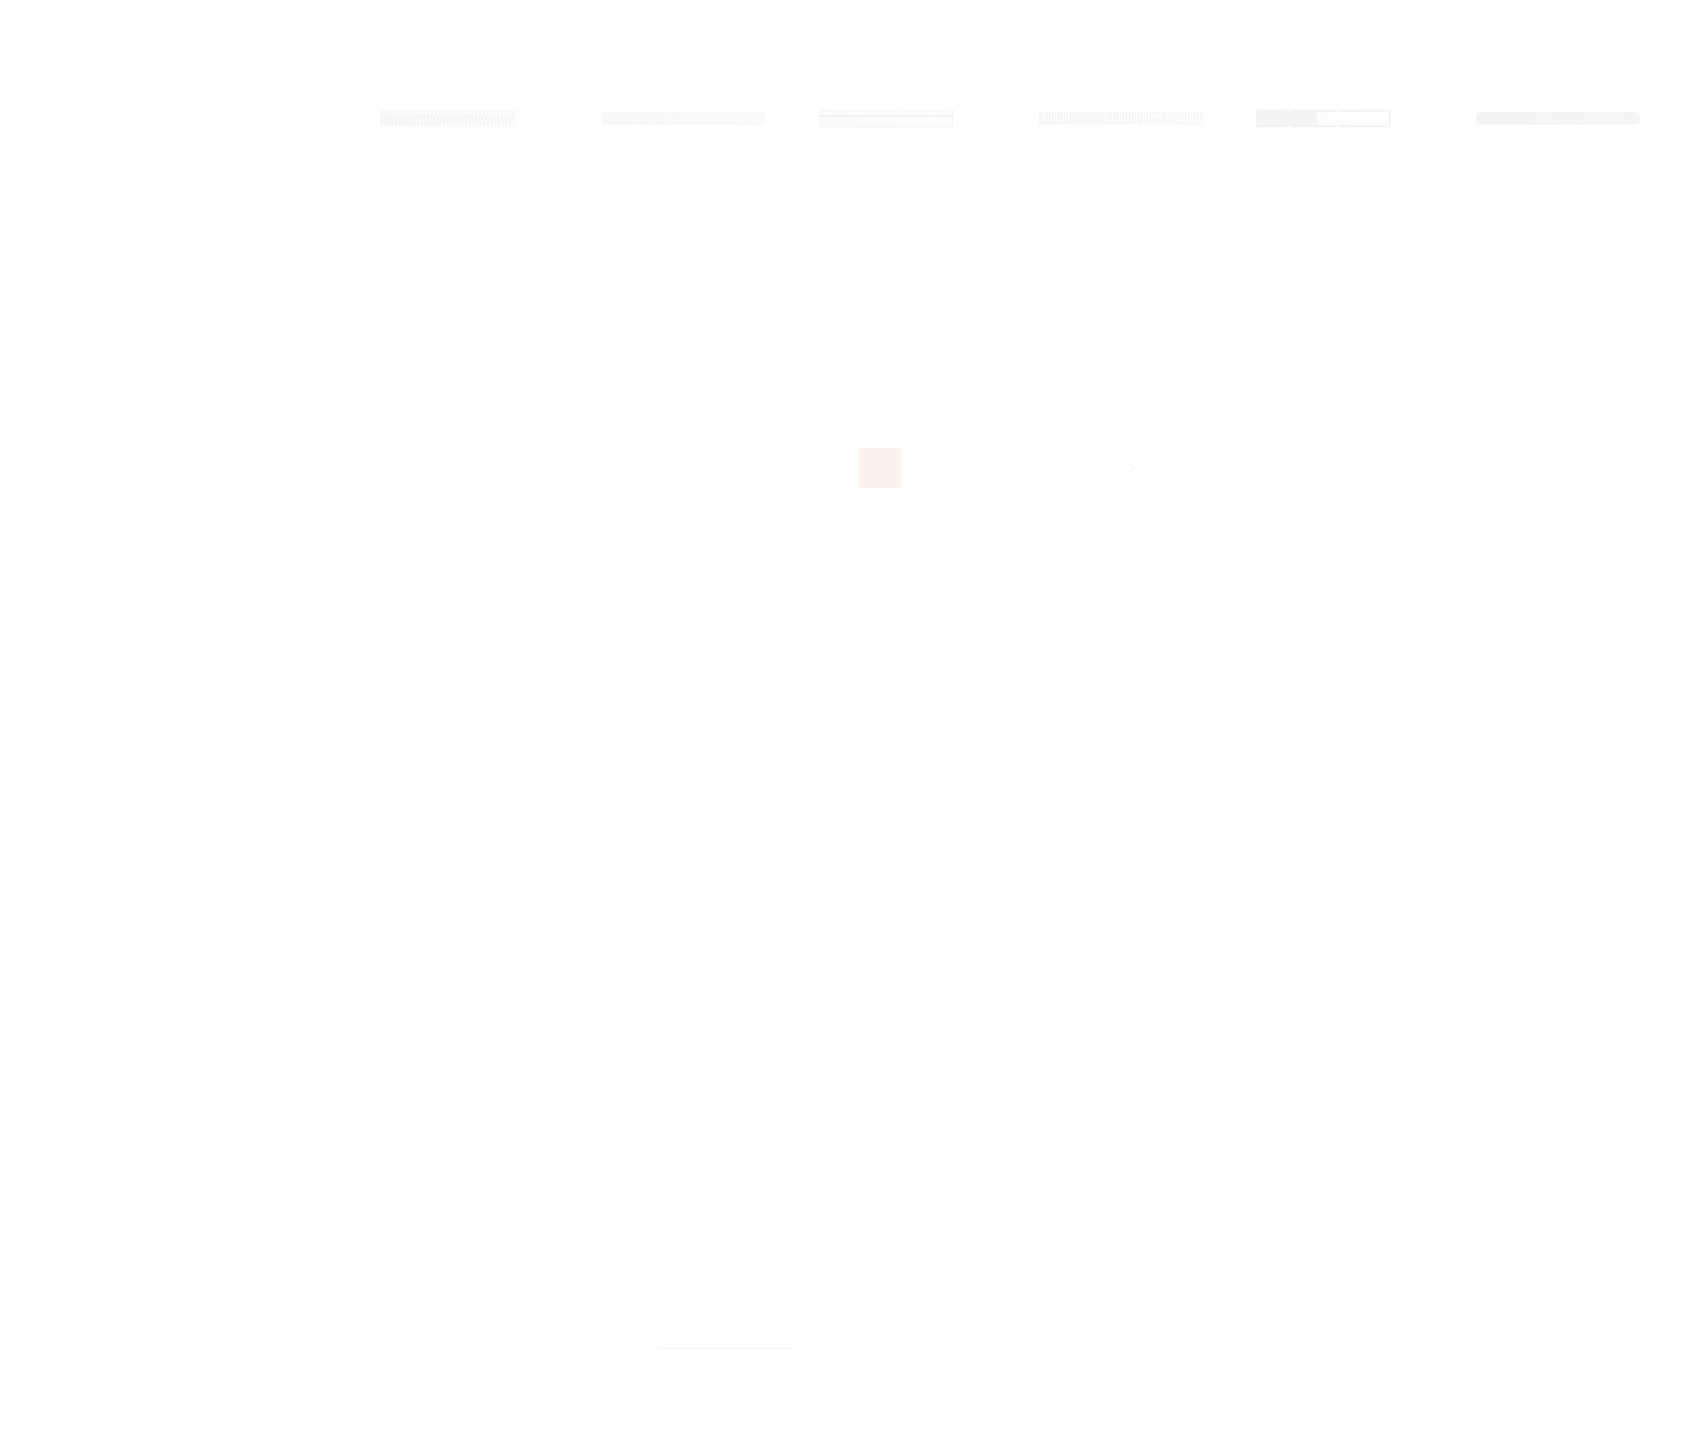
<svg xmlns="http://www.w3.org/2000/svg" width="1704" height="1453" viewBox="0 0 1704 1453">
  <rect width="100%" height="100%" fill="#fff"/>
  <image x="380" y="110" width="136" height="17" href="img/1.png"/>
  <image x="601" y="111" width="164" height="14" href="img/2.png"/>
  <image x="818" y="109" width="136" height="19" href="img/3.png"/>
  <image x="1039" y="111" width="164" height="14" href="img/4.png"/>
  <image x="1256" y="109" width="135" height="19" href="img/5.png"/>
  <image x="1476" y="111" width="164" height="14" href="img/6.png"/>
  <path d="M859 448h42v40H859z" fill="#fdf2f0"/>
  <image x="1128" y="461" width="6" height="12" href="img/7.png"/>
  <path d="M658 1348h138v1H658z" fill="#f6f6f6"/>
</svg>
